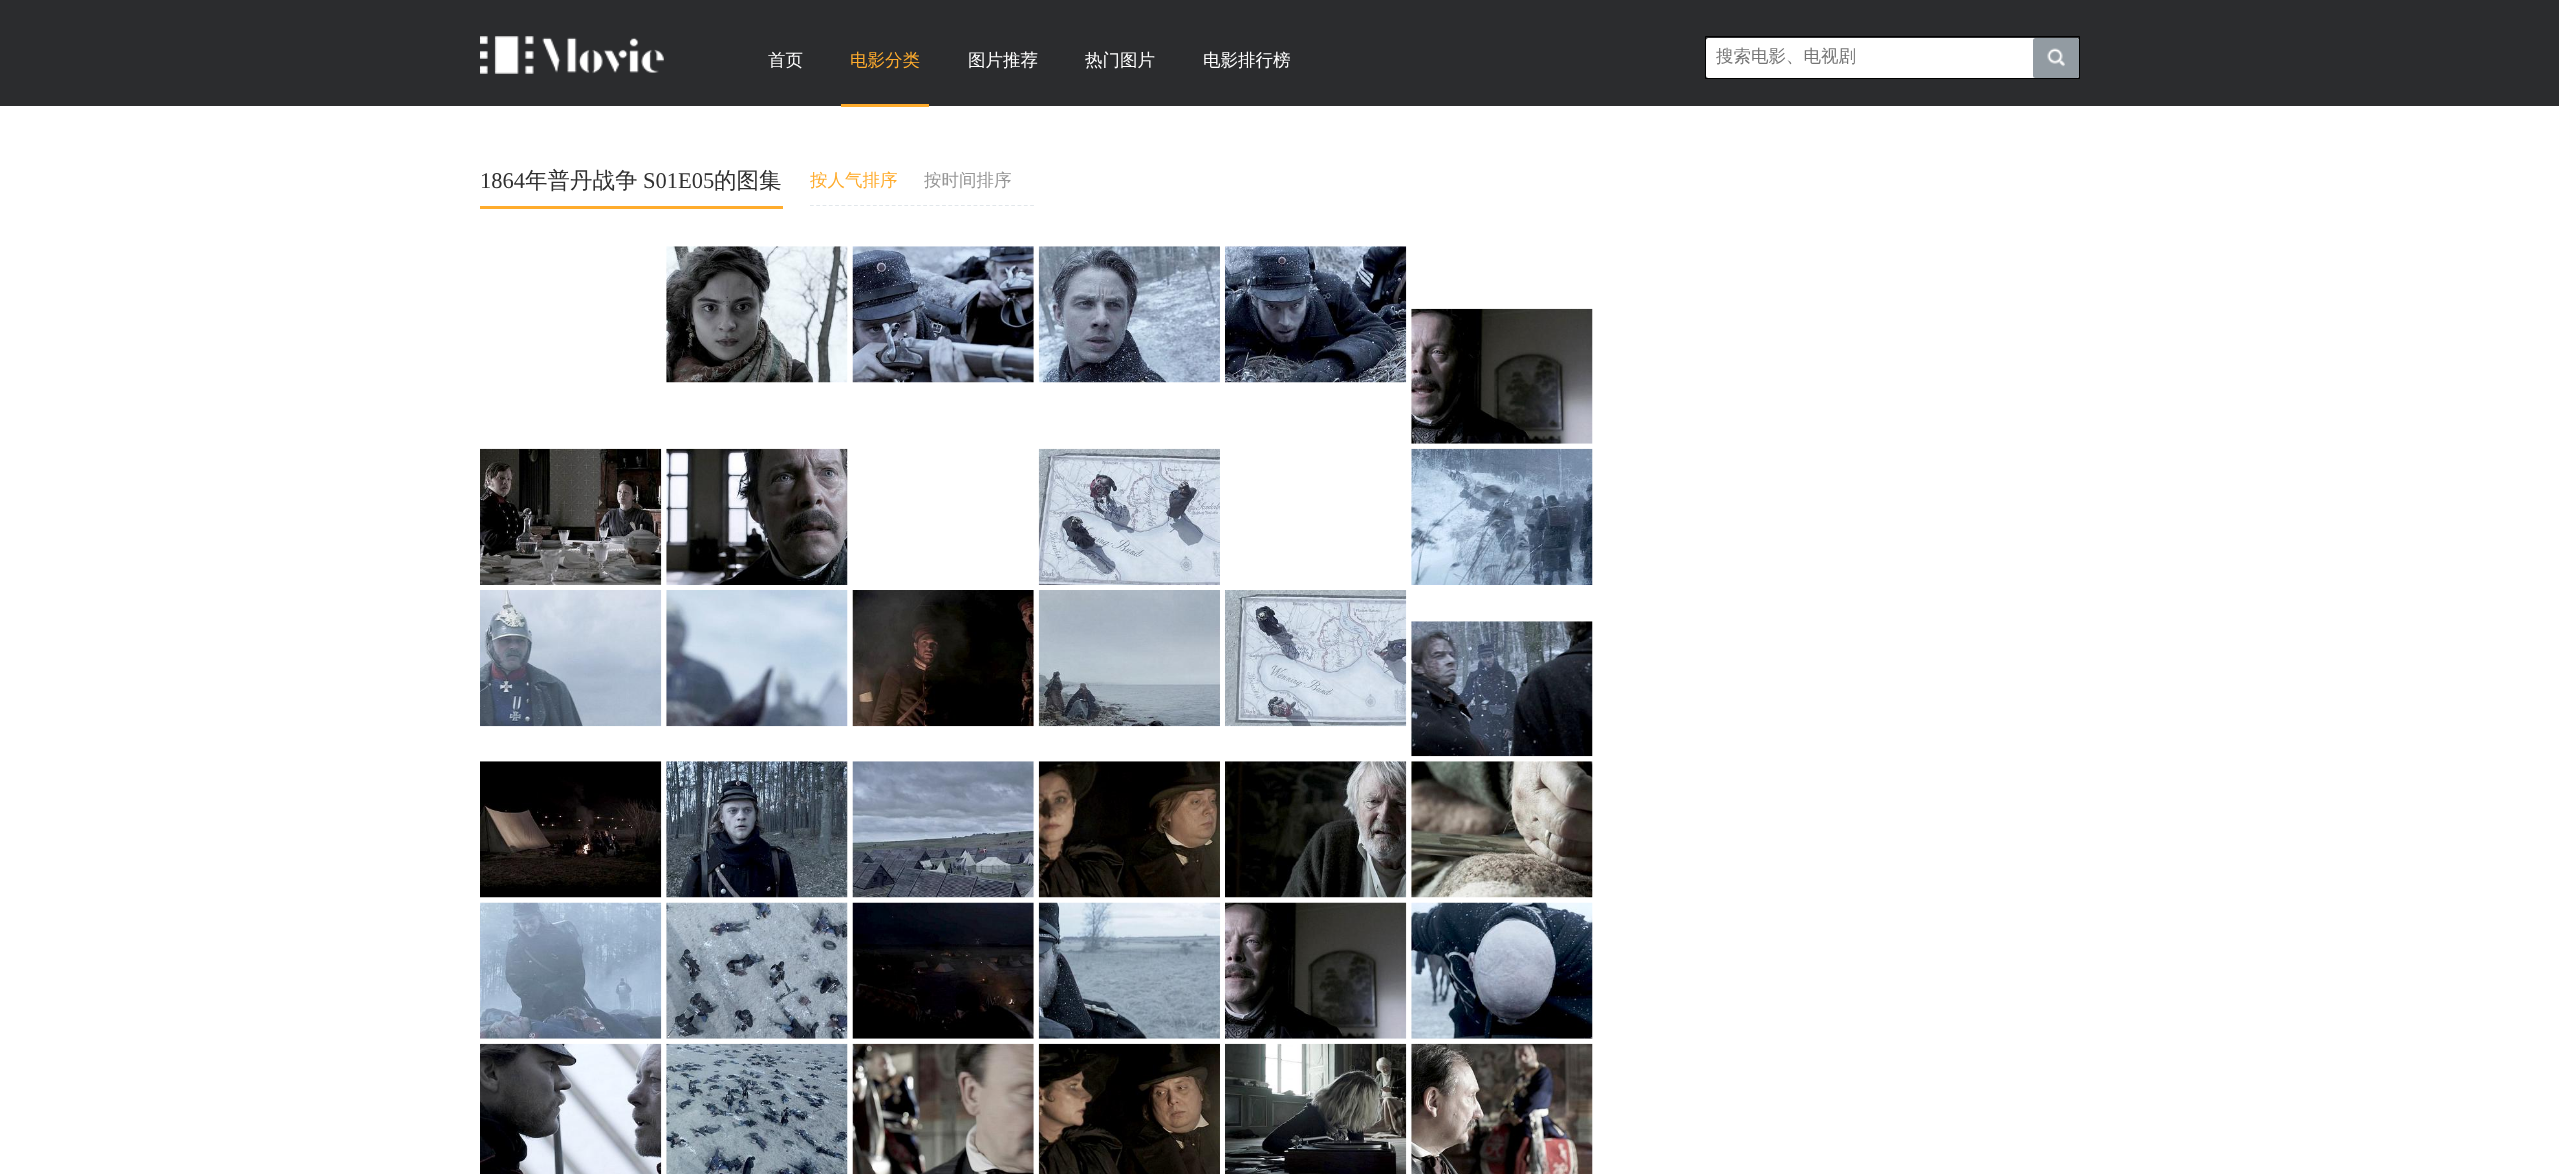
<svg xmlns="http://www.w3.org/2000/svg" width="2559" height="1174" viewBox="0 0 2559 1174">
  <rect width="100%" height="100%" fill="#fff"/>
  <path d="M0 0h2559v106H0z" fill="#2b2c2e"/>
  <image x="480" y="36" width="184" height="38" href="img/1.png"/>
  <path d="M841 104h88v3H841z" fill="#ffac2d"/>
  <path d="M1705.5 36.5h374v42H1705.5z" fill="none" stroke="#000"/>
  <rect x="1706" y="38" width="373" height="40" rx="2.5" fill="#fff"/>
  <rect x="2033" y="38" width="46" height="40" rx="2.5" fill="#929ba2"/>
  <image x="2047" y="48" width="18" height="19" href="img/2.png"/>
  <path d="M480 206h303v3H480z" fill="#ffac2d"/>
  <path d="M810 205.5H1034" fill="none" stroke="#e2e7eb" stroke-width="1.2" stroke-dasharray="3.75 2.54"/>
  <image x="666" y="246" width="182" height="137" href="img/3.png"/>
  <image x="852" y="246" width="182" height="137" href="img/4.png"/>
  <image x="1038" y="246" width="182" height="137" href="img/5.png"/>
  <image x="1225" y="246" width="182" height="137" href="img/6.png"/>
  <image x="1411" y="308" width="182" height="136" href="img/7.png"/>
  <image x="480" y="448" width="182" height="137" href="img/8.png"/>
  <image x="666" y="448" width="182" height="137" href="img/9.png"/>
  <image x="1038" y="448" width="182" height="137" href="img/10.png"/>
  <image x="1411" y="448" width="182" height="137" href="img/11.png"/>
  <image x="480" y="590" width="182" height="137" href="img/12.png"/>
  <image x="666" y="590" width="182" height="137" href="img/13.png"/>
  <image x="852" y="590" width="182" height="137" href="img/14.png"/>
  <image x="1038" y="590" width="182" height="137" href="img/15.png"/>
  <image x="1225" y="590" width="182" height="137" href="img/16.png"/>
  <image x="1411" y="621" width="182" height="136" href="img/17.png"/>
  <image x="480" y="761" width="182" height="137" href="img/18.png"/>
  <image x="666" y="761" width="182" height="137" href="img/19.png"/>
  <image x="852" y="761" width="182" height="137" href="img/20.png"/>
  <image x="1038" y="761" width="182" height="137" href="img/21.png"/>
  <image x="1225" y="761" width="182" height="137" href="img/22.png"/>
  <image x="1411" y="761" width="182" height="137" href="img/23.png"/>
  <image x="480" y="902" width="182" height="137" href="img/24.png"/>
  <image x="666" y="902" width="182" height="137" href="img/25.png"/>
  <image x="852" y="902" width="182" height="137" href="img/26.png"/>
  <image x="1038" y="902" width="182" height="137" href="img/27.png"/>
  <image x="1225" y="902" width="182" height="137" href="img/28.png"/>
  <image x="1411" y="902" width="182" height="137" href="img/29.png"/>
  <image x="480" y="1043" width="182" height="131" href="img/30.png"/>
  <image x="666" y="1043" width="182" height="131" href="img/31.png"/>
  <image x="852" y="1043" width="182" height="131" href="img/32.png"/>
  <image x="1038" y="1043" width="182" height="131" href="img/33.png"/>
  <image x="1225" y="1043" width="182" height="131" href="img/34.png"/>
  <image x="1411" y="1043" width="182" height="131" href="img/35.png"/>
  <text x="768" y="66" font-family="WenQuanYi Zen Hei" font-size="17.5" font-weight="500" fill="#fff">首页</text>
  <text x="850" y="66" font-family="WenQuanYi Zen Hei" font-size="17.5" font-weight="500" fill="#ffac2d">电影分类</text>
  <g font-family="WenQuanYi Zen Hei" font-size="17.5" font-weight="500" fill="#fff">
    <text x="968" y="66">图片推荐</text>
    <text x="1085" y="66">热门图片</text>
    <text x="1203" y="66">电影排行榜</text>
  </g>
  <text x="1716" y="62" font-family="WenQuanYi Zen Hei" font-size="17.5" font-weight="500" fill="#757575">搜索电影、电视剧</text>
  <text x="480" y="188" font-family="Liberation Serif" font-size="22.5" fill="#303030">1864</text>
  <text x="525" y="188" font-family="WenQuanYi Zen Hei" font-size="22.5" font-weight="500" fill="#303030">年普丹战争</text>
  <text x="643" y="188" font-family="Liberation Serif" font-size="22.5" fill="#303030">S01E05</text>
  <text x="714" y="188" font-family="WenQuanYi Zen Hei" font-size="22.5" font-weight="500" fill="#303030">的图集</text>
  <text x="810" y="186" font-family="WenQuanYi Zen Hei" font-size="17.5" font-weight="500" fill="#ffac2d">按人气排序</text>
  <text x="924" y="186" font-family="WenQuanYi Zen Hei" font-size="17.5" font-weight="500" fill="#969696">按时间排序</text>
</svg>
